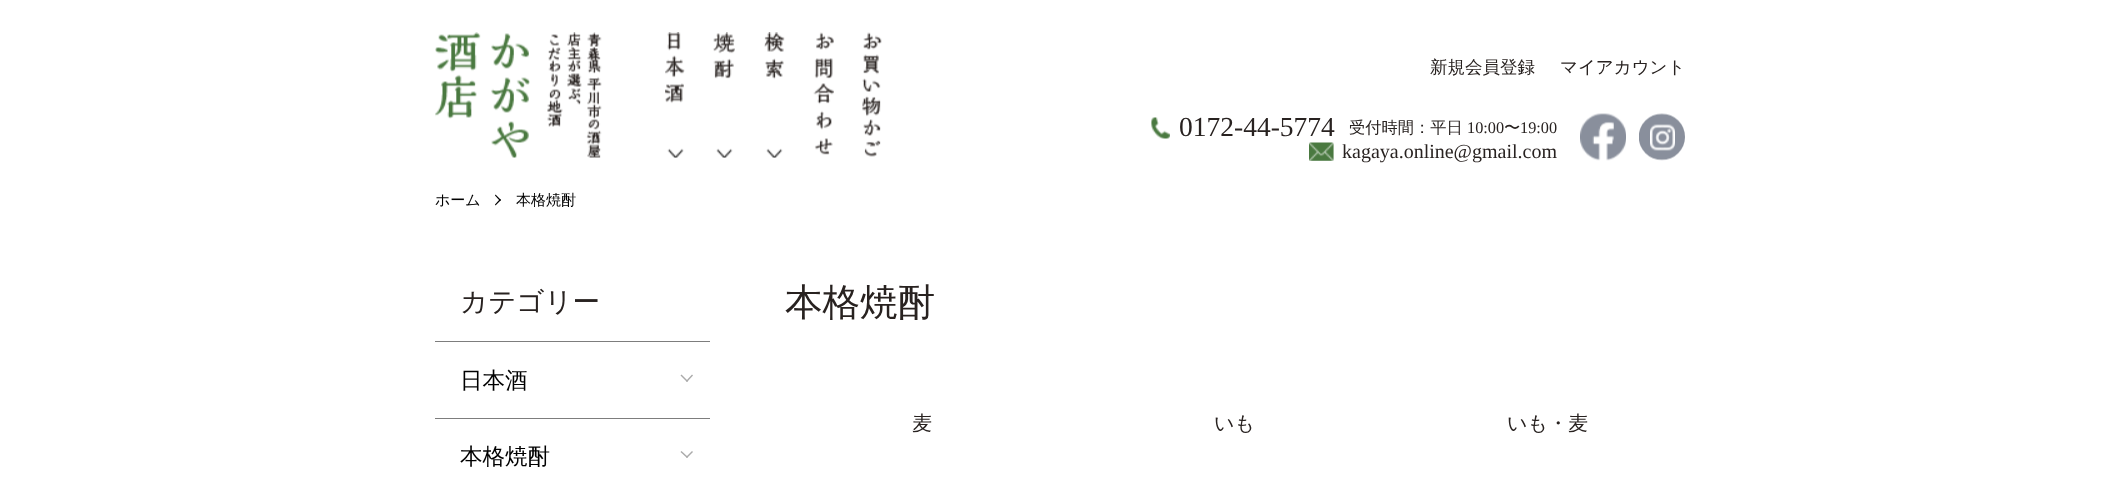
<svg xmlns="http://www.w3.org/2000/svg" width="2120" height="487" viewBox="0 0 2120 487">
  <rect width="100%" height="100%" fill="#fff"/>
  <image x="435" y="32" width="95" height="126" href="img/1.png"/>
  <image x="547" y="32" width="55" height="126" href="img/2.png"/>
  <image x="665" y="32" width="20" height="126" href="img/3.png"/>
  <image x="713" y="32" width="22" height="126" href="img/4.png"/>
  <image x="764" y="32" width="21" height="126" href="img/5.png"/>
  <image x="813" y="32" width="21" height="123" href="img/6.png"/>
  <image x="862" y="32" width="20" height="125" href="img/7.png"/>
  <image x="1151" y="117" width="19" height="22" href="img/8.png"/>
  <image x="1309" y="142" width="25" height="19" href="img/9.png"/>
  <image x="1580" y="113" width="46" height="48" href="img/10.png"/>
  <image x="1639" y="113" width="46" height="48" href="img/11.png"/>
  <path d="M495 195.5L495.5 194.5L501 200L500 201Z" fill="#000"/>
  <path d="M495 204.5L500 199L501 200L495.5 205.5Z" fill="#000"/>
  <path d="M435 341h275v1H435z" fill="#7d7d7d"/>
  <path d="M692 374.5L693 375.5L687 382L686 381Z" fill="#aaa"/>
  <path d="M681.5 374.5L688 381L687 382L680.5 375.5Z" fill="#aaa"/>
  <path d="M435 418h275v1H435z" fill="#7d7d7d"/>
  <path d="M692 451L693 452L687 458L686 457Z" fill="#aaa"/>
  <path d="M681.5 451L688 457L687 458L680.5 452Z" fill="#aaa"/>
  <g font-family="WenQuanYi Zen Hei" font-size="17.5" font-weight="500" fill="#282220">
    <text x="1430" y="73">新規会員登録</text>
    <text x="1560" y="73">マイアカウント</text>
  </g>
  <text x="1179" y="136" font-family="Liberation Serif" font-size="27.5" fill="#282220">0172-44-5774</text>
  <text x="1349" y="133" font-family="WenQuanYi Zen Hei" font-size="16.25" font-weight="500" fill="#282220">受付時間：平日</text>
  <text x="1467" y="133" font-family="Liberation Serif" font-size="16.25" fill="#282220">10:00</text>
  <text x="1504" y="133" font-family="WenQuanYi Zen Hei" font-size="16.25" font-weight="500" fill="#282220">〜</text>
  <text x="1520" y="133" font-family="Liberation Serif" font-size="16.25" fill="#282220">19:00</text>
  <text x="1342" y="158" font-family="Liberation Serif" font-size="20" fill="#282220">kagaya.online@gmail.com</text>
  <g font-family="WenQuanYi Zen Hei" font-size="15" font-weight="500" fill="#000">
    <text x="435" y="205">ホーム</text>
    <text x="516" y="205">本格焼酎</text>
  </g>
  <text x="460" y="311" font-family="WenQuanYi Zen Hei" font-size="27.5" font-weight="500" fill="#282220">カテゴリー</text>
  <g font-family="WenQuanYi Zen Hei" font-size="22.5" font-weight="500" fill="#000">
    <text x="460" y="388">日本酒</text>
    <text x="460" y="464">本格焼酎</text>
  </g>
  <text x="785" y="315" font-family="WenQuanYi Zen Hei" font-size="37.5" font-weight="500" fill="#282220">本格焼酎</text>
  <g font-family="WenQuanYi Zen Hei" font-size="20" font-weight="500" fill="#282220">
    <text x="912" y="430">麦</text>
    <text x="1214" y="430">いも</text>
    <text x="1507" y="430">いも・麦</text>
  </g>
</svg>
